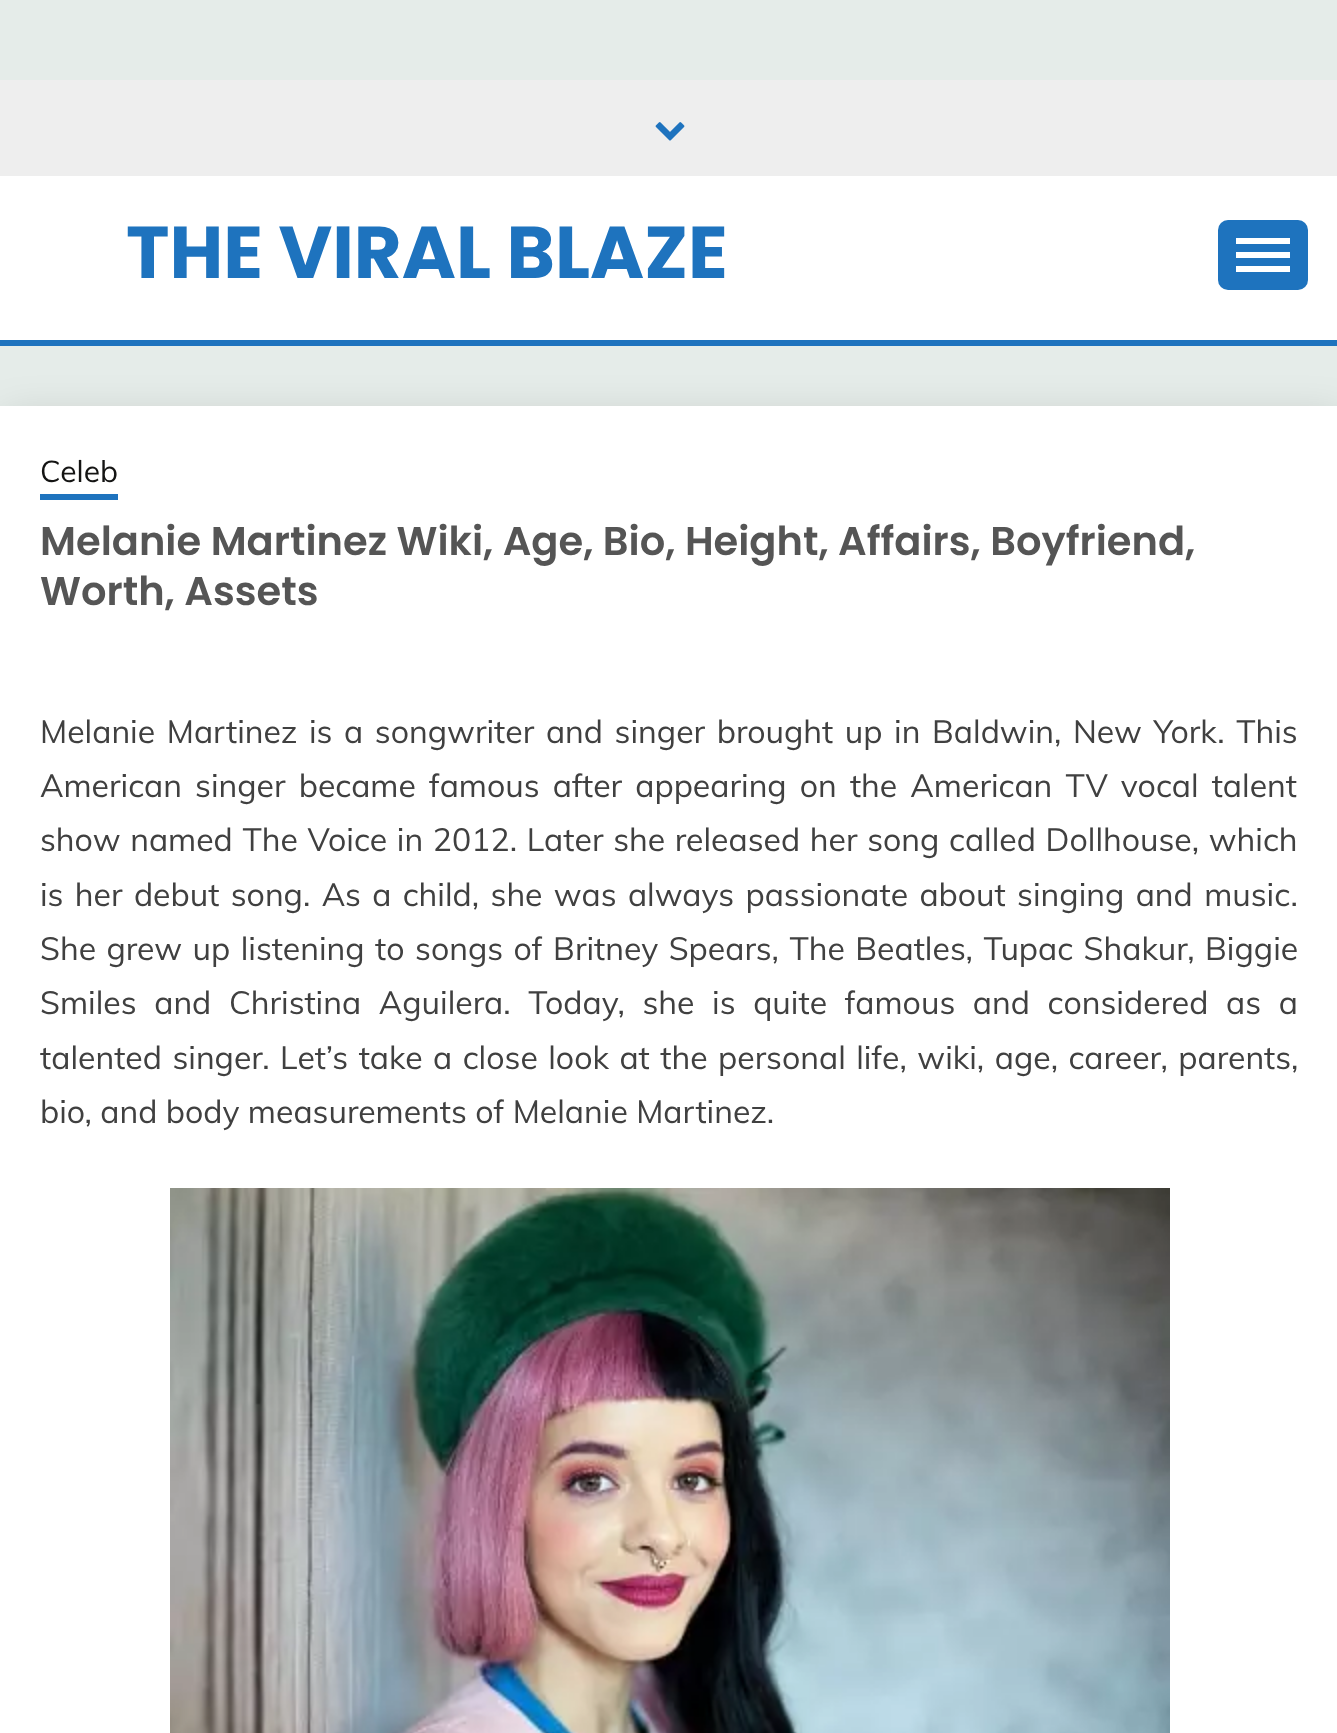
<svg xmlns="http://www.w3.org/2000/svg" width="1337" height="1733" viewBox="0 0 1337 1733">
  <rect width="100%" height="100%" fill="#e5ece9"/>
  <path d="M0 176h1337v164H0z" fill="#fff"/>
  <path d="M0 80h1337v96H0z" fill="#eee"/>
  <image x="655" y="122" width="30" height="19" href="img/1.png"/>
  <rect x="1218" y="220" width="90" height="70" rx="10" fill="#1e73be"/>
  <path d="M1236 238h54v6H1236z" fill="#fff"/>
  <path d="M1236 252h54v6H1236z" fill="#fff"/>
  <path d="M1236 266h54v6H1236z" fill="#fff"/>
  <path d="M0 340h1337v6H0z" fill="#1e73be"/>
  <path d="M4 416h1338v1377H4z" fill="#00000024" filter="blur(20px)"/>
  <path d="M0 406h1337v1327H0z" fill="#fff"/>
  <path d="M40 494h78v6H40z" fill="#1e73be"/>
  <image x="170" y="1188" width="1000" height="545" href="img/2.png"/>
  <text x="126" y="278" font-family="Poppins" font-size="73.5" font-weight="bold" fill="#1e73be">THE VIRAL BLAZE</text>
  <text x="40" y="482" font-family="Muli" font-size="30" fill="#141413">Celeb</text>
  <g font-family="Poppins" font-size="40" font-weight="600" fill="#555">
    <text x="40" y="555">Melanie Martinez Wiki, Age, Bio, Height, Affairs, Boyfriend,</text>
    <text x="40" y="605">Worth, Assets</text>
  </g>
  <g font-family="Muli" font-size="32" fill="#404040">
    <text x="40" y="743" word-spacing="3.25">Melanie Martinez is a songwriter and singer brought up in Baldwin, New York. This</text>
    <text x="40" y="797" word-spacing="4.75">American singer became famous after appearing on the American TV vocal talent</text>
    <text x="40" y="851" word-spacing="1.3">show named The Voice in 2012. Later she released her song called Dollhouse, which</text>
    <text x="40" y="906" word-spacing="3">is her debut song. As a child, she was always passionate about singing and music.</text>
    <text x="40" y="960" word-spacing="2.1">She grew up listening to songs of Britney Spears, The Beatles, Tupac Shakur, Biggie</text>
    <text x="40" y="1014" word-spacing="9.25">Smiles and Christina Aguilera. Today, she is quite famous and considered as a</text>
    <text x="40" y="1069" word-spacing="2.1">talented singer. Let’s take a close look at the personal life, wiki, age, career, parents,</text>
    <text x="40" y="1123">bio, and body measurements of Melanie Martinez.</text>
  </g>
</svg>
